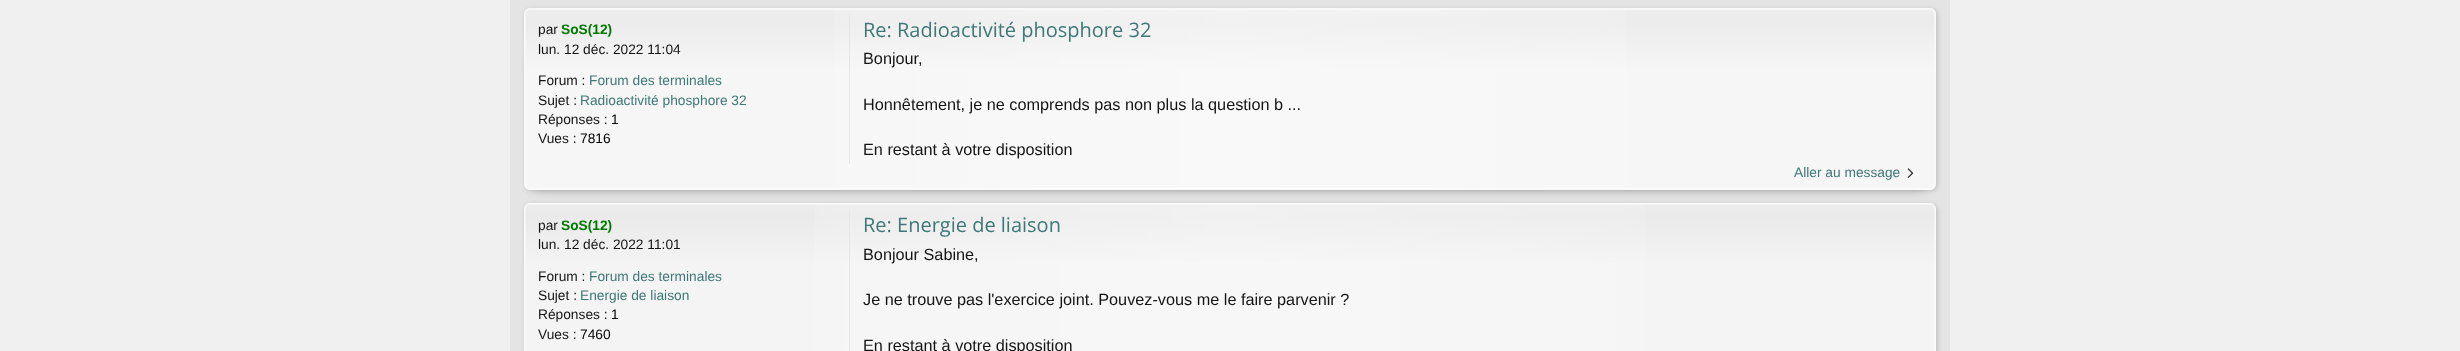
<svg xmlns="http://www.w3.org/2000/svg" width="2460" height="351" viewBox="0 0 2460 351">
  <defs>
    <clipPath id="clip1"><rect x="524" y="8" width="1412" height="182" rx="6"/></clipPath>
    <linearGradient id="g1" gradientUnits="userSpaceOnUse" x1="1230" y1="9" x2="1230" y2="189"><stop offset="0" stop-color="#ccc" stop-opacity="0.2"/><stop offset="0.07" stop-color="#ccc" stop-opacity="0.25"/><stop offset="0.35" stop-color="#ccc" stop-opacity="0"/></linearGradient>
    <linearGradient id="g2" gradientUnits="userSpaceOnUse" x1="525" y1="99" x2="1935" y2="99"><stop offset="0" stop-color="#fff" stop-opacity="0"/><stop offset="0.5" stop-color="#fff" stop-opacity="0.3"/><stop offset="1" stop-color="#fff" stop-opacity="0"/></linearGradient>
    <clipPath id="clip2"><rect x="524" y="203" width="1412" height="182" rx="6"/></clipPath>
    <linearGradient id="g3" gradientUnits="userSpaceOnUse" x1="1230" y1="204" x2="1230" y2="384"><stop offset="0" stop-color="#ccc" stop-opacity="0.2"/><stop offset="0.07" stop-color="#ccc" stop-opacity="0.25"/><stop offset="0.35" stop-color="#ccc" stop-opacity="0"/></linearGradient>
    <linearGradient id="g4" gradientUnits="userSpaceOnUse" x1="525" y1="294" x2="1935" y2="294"><stop offset="0" stop-color="#fff" stop-opacity="0"/><stop offset="0.5" stop-color="#fff" stop-opacity="0.3"/><stop offset="1" stop-color="#fff" stop-opacity="0"/></linearGradient>
  </defs>
  <rect width="100%" height="100%" fill="#f0f0f0"/>
  <path d="M510 0h1440v351H510z" fill="#e4e4e4"/>
  <path d="M536 33h1388v157H536z" fill="#00000033" filter="blur(6px)"/>
  <rect x="525" y="9" width="1413" height="182" rx="6" fill="#00000026" filter="blur(2px)"/>
  <rect x="524" y="8" width="1412" height="182" rx="6" fill="#f6f6f6"/>
  <g clip-path="url(#clip1)">
    <path d="M524 9h1412v59H524z" fill="url(#g1)"/>
  </g>
  <path d="M834 9h792v180H834z" fill="url(#g2)"/>
  <rect x="525.5" y="9.5" width="1409" height="179" rx="4.5" fill="none" stroke="#ffffff80"/>
  <rect x="524.5" y="8.5" width="1411" height="181" rx="5.5" fill="none" stroke="#f9f9f9"/>
  <path d="M849 15h1v149H849z" fill="#e7e7e7"/>
  <image x="1907" y="168" width="7" height="10" href="img/1.png"/>
  <rect x="525" y="204" width="1413" height="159" rx="6" fill="#00000026" filter="blur(2px)"/>
  <rect x="524" y="203" width="1412" height="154" rx="6" fill="#f4f4f4"/>
  <g clip-path="url(#clip2)">
    <path d="M524 204h1412v59H524z" fill="url(#g3)"/>
  </g>
  <path d="M815 204h830v147H815z" fill="url(#g4)"/>
  <rect x="525.5" y="204.5" width="1409" height="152" rx="4.5" fill="none" stroke="#ffffff80"/>
  <rect x="524.5" y="203.5" width="1411" height="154" rx="5.5" fill="none" stroke="#f9f9f9"/>
  <path d="M849 210h1v141H849z" fill="#e7e7e7"/>
  <text x="538" y="34" font-family="Liberation Sans" font-size="13.75" fill="#141414">par</text>
  <text x="561" y="34" font-family="Liberation Sans" font-size="13.75" font-weight="bold" fill="#007900">SoS(12)</text>
  <g font-family="Liberation Sans" font-size="13.75" fill="#141414">
    <text x="538" y="54">lun. 12 déc. 2022 11:04</text>
    <text x="538" y="85">Forum :</text>
  </g>
  <text x="589" y="85" font-family="Liberation Sans" font-size="13.75" fill="#407878">Forum des terminales</text>
  <text x="538" y="105" font-family="Liberation Sans" font-size="13.75" fill="#141414">Sujet :</text>
  <text x="580" y="105" font-family="Liberation Sans" font-size="13.75" fill="#407878">Radioactivité phosphore 32</text>
  <text x="538" y="124" font-family="Liberation Sans" font-size="13.75" fill="#141414">Réponses :</text>
  <text x="611" y="124" font-family="Liberation Sans" font-size="13.75" fill="#000">1</text>
  <text x="538" y="143" font-family="Liberation Sans" font-size="13.75" fill="#141414">Vues :</text>
  <text x="580" y="143" font-family="Liberation Sans" font-size="13.75" fill="#000">7816</text>
  <text x="863" y="37" font-family="Open Sans" font-size="20" fill="#407878">Re: Radioactivité phosphore 32</text>
  <g font-family="Liberation Sans" font-size="16.25" fill="#141414">
    <text x="863" y="64">Bonjour,</text>
    <text x="863" y="110">Honnêtement, je ne comprends pas non plus la question b ...</text>
    <text x="863" y="155">En restant à votre disposition</text>
  </g>
  <text x="1794" y="177" font-family="Liberation Sans" font-size="13.75" fill="#407878">Aller au message</text>
  <text x="538" y="230" font-family="Liberation Sans" font-size="13.75" fill="#141414">par</text>
  <text x="561" y="230" font-family="Liberation Sans" font-size="13.75" font-weight="bold" fill="#007900">SoS(12)</text>
  <g font-family="Liberation Sans" font-size="13.75" fill="#141414">
    <text x="538" y="249">lun. 12 déc. 2022 11:01</text>
    <text x="538" y="281">Forum :</text>
  </g>
  <text x="589" y="281" font-family="Liberation Sans" font-size="13.75" fill="#407878">Forum des terminales</text>
  <text x="538" y="300" font-family="Liberation Sans" font-size="13.75" fill="#141414">Sujet :</text>
  <text x="580" y="300" font-family="Liberation Sans" font-size="13.75" fill="#407878">Energie de liaison</text>
  <text x="538" y="319" font-family="Liberation Sans" font-size="13.75" fill="#141414">Réponses :</text>
  <text x="611" y="319" font-family="Liberation Sans" font-size="13.75" fill="#000">1</text>
  <text x="538" y="339" font-family="Liberation Sans" font-size="13.75" fill="#141414">Vues :</text>
  <text x="580" y="339" font-family="Liberation Sans" font-size="13.75" fill="#000">7460</text>
  <text x="863" y="232" font-family="Open Sans" font-size="20" fill="#407878">Re: Energie de liaison</text>
  <g font-family="Liberation Sans" font-size="16.25" fill="#141414">
    <text x="863" y="260">Bonjour Sabine,</text>
    <text x="863" y="305">Je ne trouve pas l'exercice joint. Pouvez-vous me le faire parvenir ?</text>
    <text x="863" y="351">En restant à votre disposition</text>
  </g>
</svg>
